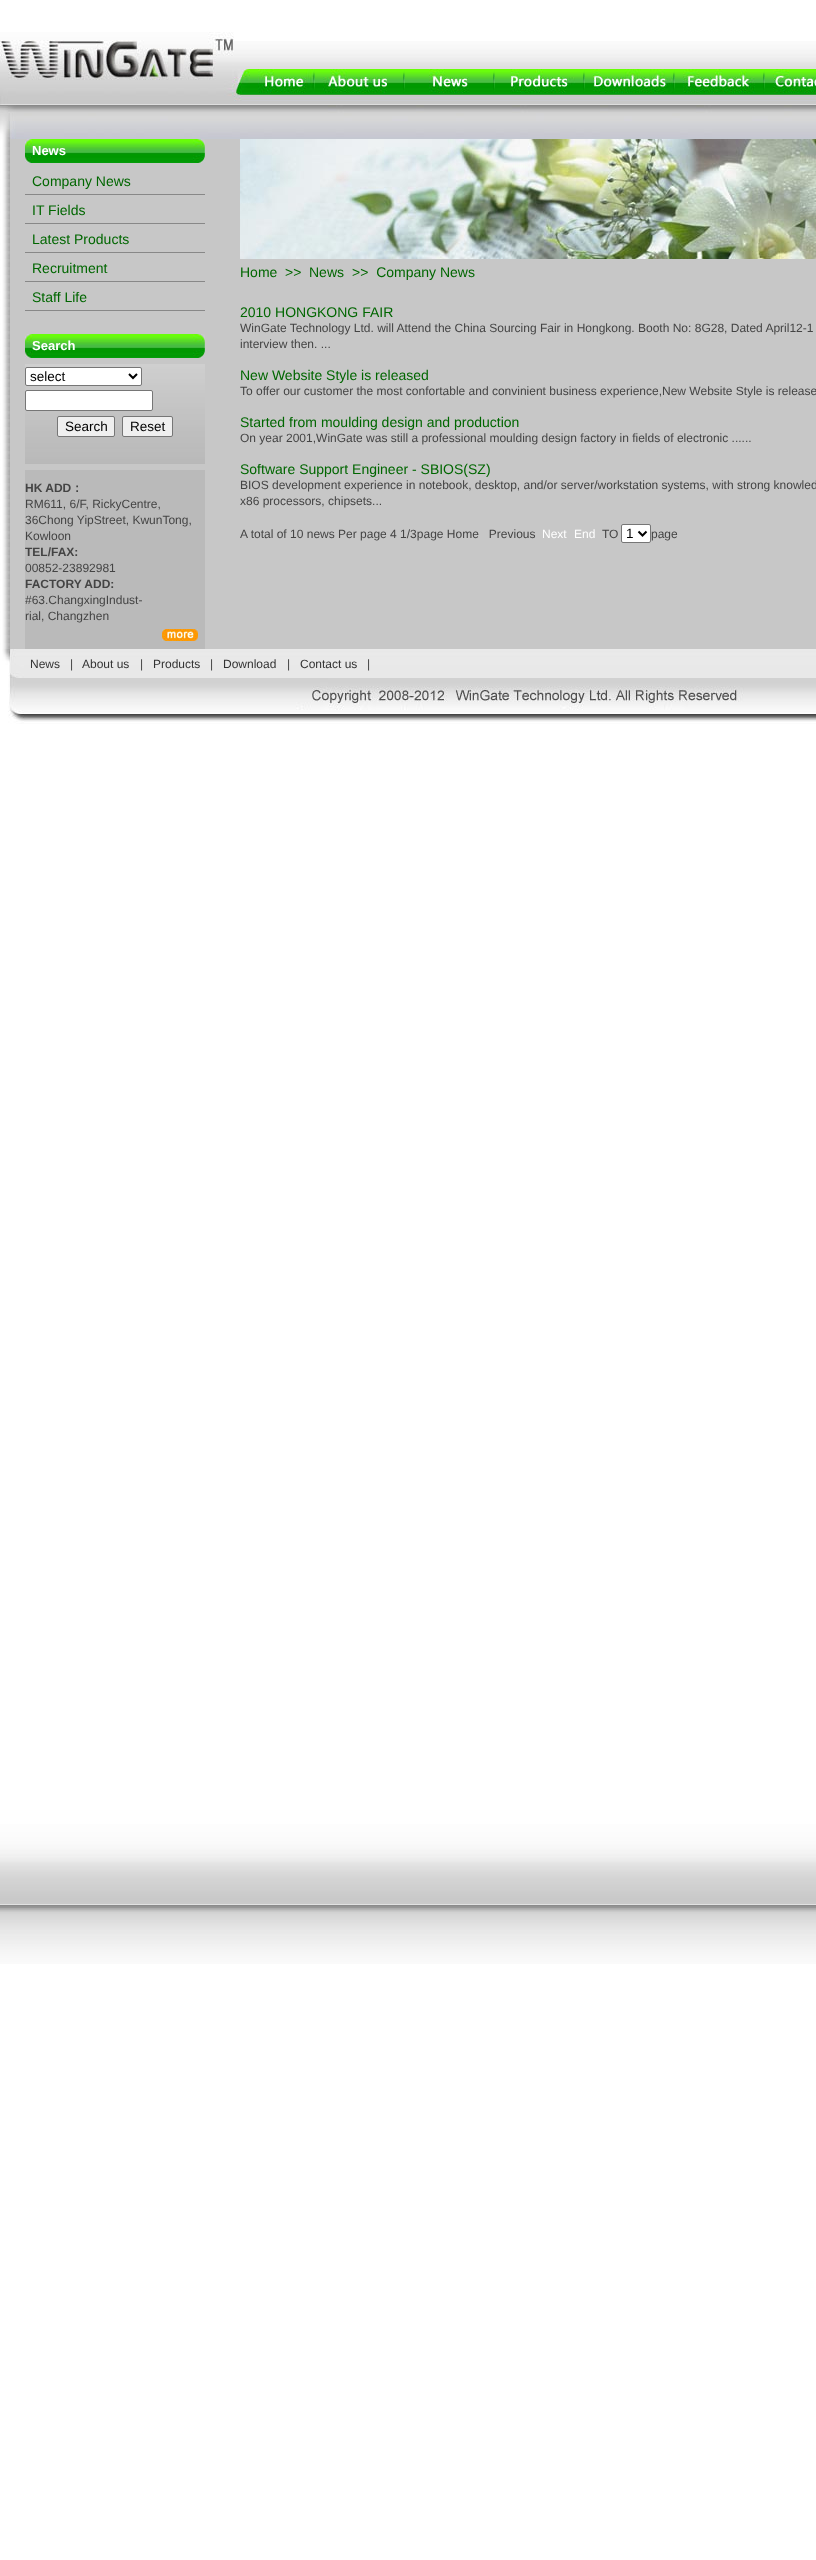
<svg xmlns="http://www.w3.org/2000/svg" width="816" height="2560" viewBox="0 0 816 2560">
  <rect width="100%" height="100%" fill="#fff"/>
  <image x="0" y="41" width="816" height="1923" href="img/1.png"/>
  <image x="0" y="32" width="234" height="73" href="img/2.png"/>
  <image x="234" y="69" width="81" height="36" href="img/3.png"/>
  <image x="315" y="69" width="90" height="36" href="img/4.png"/>
  <image x="405" y="69" width="90" height="36" href="img/5.png"/>
  <image x="495" y="69" width="90" height="36" href="img/6.png"/>
  <image x="585" y="69" width="90" height="36" href="img/7.png"/>
  <image x="675" y="69" width="90" height="36" href="img/8.png"/>
  <image x="765" y="69" width="51" height="36" href="img/9.png"/>
  <image x="0" y="105" width="816" height="34" href="img/10.png"/>
  <image x="0" y="139" width="10" height="510" href="img/11.png"/>
  <path d="M10 139h230v510H10z" fill="#c7c7c7"/>
  <image x="25" y="139" width="180" height="24" href="img/12.png"/>
  <path d="M25 194h180v1H25z" fill="#888"/>
  <path d="M25 223h180v1H25z" fill="#888"/>
  <path d="M25 252h180v1H25z" fill="#888"/>
  <path d="M25 281h180v1H25z" fill="#888"/>
  <path d="M25 310h180v1H25z" fill="#888"/>
  <image x="25" y="334" width="180" height="24" href="img/12.png"/>
  <image x="25" y="364" width="180" height="100" href="img/13.png"/>
  <rect x="25.5" y="367.5" width="116" height="18" rx="1.5" fill="#fff" stroke="#767676"/>
  <path d="M129 374L133 378L137 374" fill="none" stroke="#000" stroke-width="2"/>
  <rect x="25.5" y="390.5" width="127" height="20" rx="1.5" fill="#fff" stroke="#767676"/>
  <rect x="57.5" y="416.5" width="57" height="20" rx="1.5" fill="#efefef" stroke="#767676"/>
  <rect x="122.5" y="416.5" width="50" height="20" rx="1.5" fill="#efefef" stroke="#767676"/>
  <path d="M25 470h180v179H25z" fill="#bababa"/>
  <image x="162" y="629" width="36" height="12" href="img/14.png"/>
  <path d="M240 259h576v390H240z" fill="#c7c7c7"/>
  <image x="240" y="139" width="576" height="120" href="img/15.png"/>
  <rect x="621.5" y="524.5" width="29" height="18" rx="1.5" fill="#fff" stroke="#767676"/>
  <path d="M638.5 531.5L642.5 535.5L646.5 531.5" fill="none" stroke="#000" stroke-width="2"/>
  <image x="2" y="649" width="814" height="29" href="img/16.png"/>
  <image x="8" y="678" width="808" height="46" href="img/17.png"/>
  <text x="32" y="155" font-family="Liberation Sans" font-size="13" font-weight="bold" fill="#fff">News</text>
  <g font-family="Liberation Sans" font-size="14" fill="#060">
    <text x="32" y="186">Company News</text>
    <text x="32" y="215">IT Fields</text>
    <text x="32" y="244">Latest Products</text>
    <text x="32" y="273">Recruitment</text>
    <text x="32" y="302">Staff Life</text>
  </g>
  <text x="32" y="350" font-family="Liberation Sans" font-size="13" font-weight="bold" fill="#fff">Search</text>
  <g font-family="Liberation Sans" font-size="13.5" fill="#000">
    <text x="30" y="381">select</text>
    <text x="65" y="431">Search</text>
    <text x="130" y="431">Reset</text>
  </g>
  <text x="25" y="492" font-family="Liberation Sans" font-size="12" font-weight="bold" fill="#444">HK ADD</text>
  <text x="71" y="492" font-family="WenQuanYi Zen Hei" font-size="12" font-weight="bold" fill="#444">：</text>
  <g font-family="Liberation Sans" font-size="12" fill="#444">
    <text x="25" y="508">RM611, 6/F, RickyCentre,</text>
    <text x="25" y="524">36Chong YipStreet, KwunTong,</text>
    <text x="25" y="540">Kowloon</text>
  </g>
  <text x="25" y="556" font-family="Liberation Sans" font-size="12" font-weight="bold" fill="#444">TEL/FAX:</text>
  <text x="25" y="572" font-family="Liberation Sans" font-size="12" fill="#444">00852-23892981</text>
  <text x="25" y="588" font-family="Liberation Sans" font-size="12" font-weight="bold" fill="#444">FACTORY ADD:</text>
  <g font-family="Liberation Sans" font-size="12" fill="#444">
    <text x="25" y="604">#63.ChangxingIndust-</text>
    <text x="25" y="620">rial, Changzhen</text>
  </g>
  <g font-family="Liberation Sans" font-size="14" fill="#060">
    <text x="240" y="277">Home</text>
    <text x="285" y="277">&gt;&gt;</text>
    <text x="309" y="277">News</text>
    <text x="352" y="277" xml:space="preserve">&gt;&gt;  Company News</text>
    <text x="240" y="317">2010 HONGKONG FAIR</text>
  </g>
  <g font-family="Liberation Sans" font-size="12" fill="#444">
    <text x="240" y="332">WinGate Technology Ltd. will Attend the China Sourcing Fair in Hongkong. Booth No: 8G28, Dated April12-1</text>
    <text x="240" y="348">interview then. ...</text>
  </g>
  <text x="240" y="380" font-family="Liberation Sans" font-size="14" fill="#060">New Website Style is released</text>
  <text x="240" y="395" font-family="Liberation Sans" font-size="12" fill="#444">To offer our customer the most confortable and convinient business experience,New Website Style is release</text>
  <text x="240" y="427" font-family="Liberation Sans" font-size="14" fill="#060">Started from moulding design and production</text>
  <text x="240" y="442" font-family="Liberation Sans" font-size="12" fill="#444">On year 2001,WinGate was still a professional moulding design factory in fields of electronic ......</text>
  <text x="240" y="474" font-family="Liberation Sans" font-size="14" fill="#060">Software Support Engineer - SBIOS(SZ)</text>
  <g font-family="Liberation Sans" font-size="12" fill="#444">
    <text x="240" y="489">BIOS development experience in notebook, desktop, and/or server/workstation systems, with strong knowled</text>
    <text x="240" y="505">x86 processors, chipsets...</text>
    <text x="240" y="538" xml:space="preserve">A total of 10 news Per page 4 1/3page Home   Previous</text>
  </g>
  <g font-family="Liberation Sans" font-size="12" fill="#fff">
    <text x="542" y="538">Next</text>
    <text x="574" y="538">End</text>
  </g>
  <text x="602" y="538" font-family="Liberation Sans" font-size="12" fill="#444">TO</text>
  <text x="626" y="538" font-family="Liberation Sans" font-size="13.5" fill="#000">1</text>
  <text x="651" y="538" font-family="Liberation Sans" font-size="12" fill="#444">page</text>
  <text x="30" y="668" font-family="Liberation Sans" font-size="12" fill="#333">News</text>
  <text x="70" y="668" font-family="Liberation Sans" font-size="12" fill="#444">|</text>
  <text x="82" y="668" font-family="Liberation Sans" font-size="12" fill="#333">About us</text>
  <text x="140" y="668" font-family="Liberation Sans" font-size="12" fill="#444">|</text>
  <text x="153" y="668" font-family="Liberation Sans" font-size="12" fill="#333">Products</text>
  <text x="210" y="668" font-family="Liberation Sans" font-size="12" fill="#444">|</text>
  <text x="223" y="668" font-family="Liberation Sans" font-size="12" fill="#333">Download</text>
  <text x="287" y="668" font-family="Liberation Sans" font-size="12" fill="#444">|</text>
  <text x="300" y="668" font-family="Liberation Sans" font-size="12" fill="#333">Contact us</text>
  <text x="367" y="668" font-family="Liberation Sans" font-size="12" fill="#444">|</text>
</svg>
